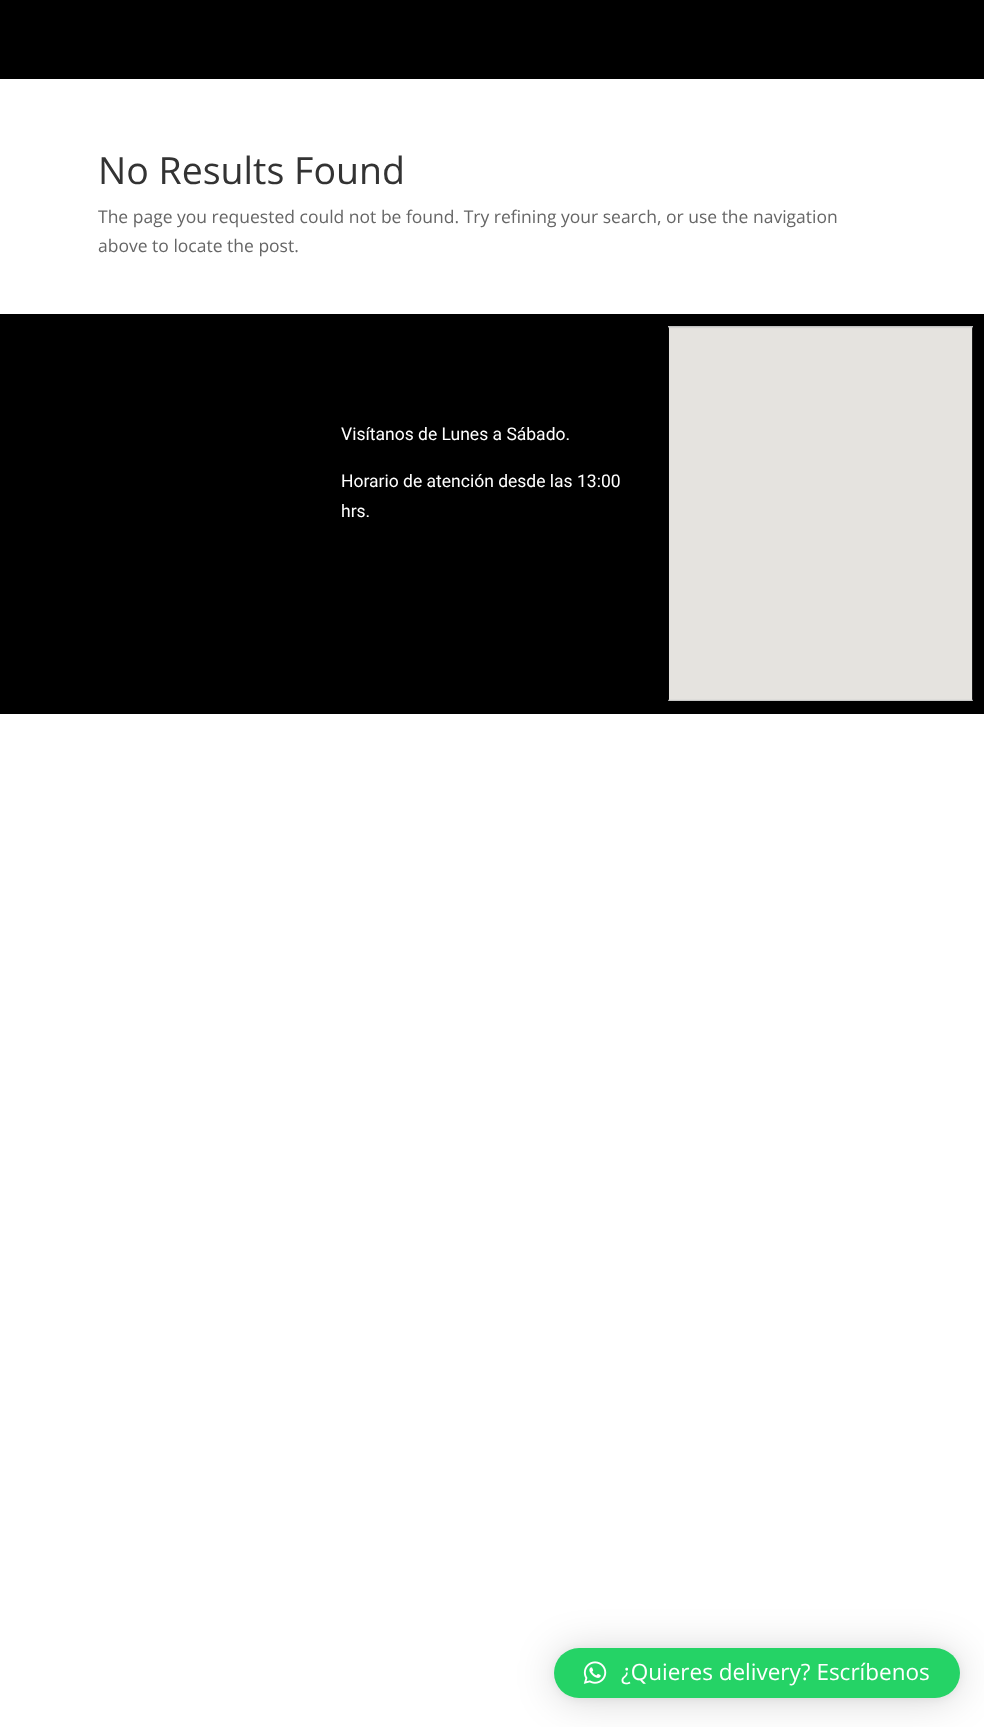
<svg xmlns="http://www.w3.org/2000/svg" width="984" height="1727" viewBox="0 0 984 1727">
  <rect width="100%" height="100%" fill="#fff"/>
  <path d="M0 0h984v79H0z" fill="#000"/>
  <path d="M0 314h984v400H0z" fill="#000"/>
  <image x="668" y="326" width="305" height="375" href="img/1.png"/>
  <rect x="554" y="1650" width="406" height="50" rx="25" fill="#00000029" filter="blur(20px)"/>
  <rect x="554" y="1649" width="406" height="50" rx="25" fill="#0000000f" filter="blur(4px)"/>
  <rect x="554" y="1648" width="406" height="50" rx="25" fill="#25d366"/>
  <image x="583" y="1661" width="24" height="23" href="img/2.png"/>
  <text x="98" y="184" font-family="Open Sans" font-size="37.5" fill="#333">No Results Found</text>
  <g font-family="Open Sans" font-size="17.5" fill="#666">
    <text x="98" y="223">The page you requested could not be found. Try refining your search, or use the navigation</text>
    <text x="98" y="252">above to locate the post.</text>
  </g>
  <g font-family="Roboto" font-size="17.5" fill="#fff">
    <text x="341" y="440">Visítanos de Lunes a Sábado.</text>
    <text x="341" y="487">Horario de atención desde las 13:00</text>
    <text x="341" y="517">hrs.</text>
  </g>
  <text x="621" y="1680" font-family="Open Sans" font-size="22.5" fill="#fff">¿Quieres delivery? Escríbenos</text>
</svg>
